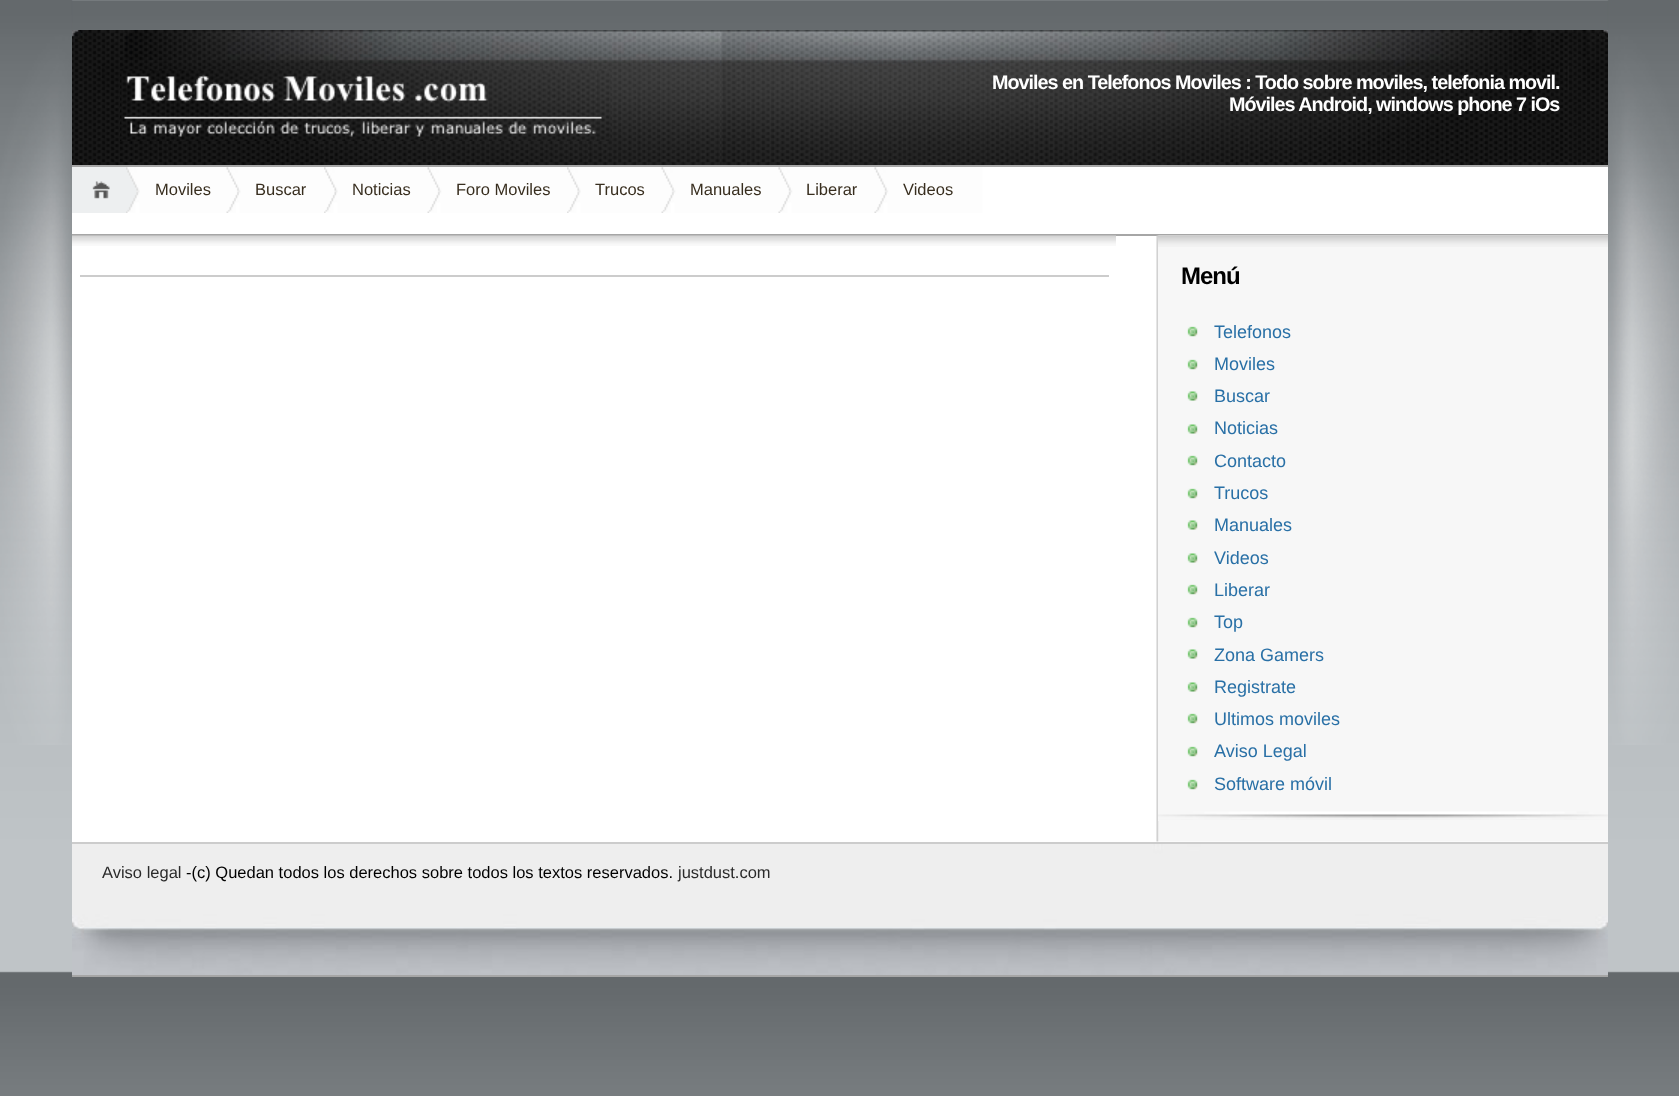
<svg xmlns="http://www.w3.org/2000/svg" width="1679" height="1096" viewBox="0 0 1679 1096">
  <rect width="100%" height="100%" fill="#fff"/>
  <image x="0" y="0" width="1679" height="1096" href="img/1.png"/>
  <image x="0" y="0" width="1679" height="745" href="img/2.png"/>
  <image x="72" y="30" width="1536" height="135" href="img/3.png"/>
  <path d="M72 165h1536v2H72z" fill="#a6a6a6"/>
  <image x="120" y="70" width="491" height="71" href="img/4.png"/>
  <path d="M72 167h1536v675H72z" fill="#fff"/>
  <path d="M72 975h1536v2H72z" fill="#a6a6a6"/>
  <path d="M72 234h1536v2H72z" fill="#a6a6a6"/>
  <image x="72" y="167" width="65" height="46" href="img/5.png"/>
  <image x="126" y="167" width="112" height="46" href="img/6.png"/>
  <image x="226" y="167" width="109" height="46" href="img/7.png"/>
  <image x="324" y="167" width="115" height="46" href="img/8.png"/>
  <image x="427" y="167" width="151" height="46" href="img/9.png"/>
  <image x="567" y="167" width="106" height="46" href="img/10.png"/>
  <image x="661" y="167" width="129" height="46" href="img/11.png"/>
  <image x="778" y="167" width="108" height="46" href="img/12.png"/>
  <image x="874" y="167" width="109" height="46" href="img/13.png"/>
  <image x="1156" y="235" width="452" height="607" href="img/14.png"/>
  <image x="72" y="235" width="1044" height="11" href="img/15.png"/>
  <path d="M80 275h1029v2H80z" fill="#ccc"/>
  <path d="M1158 247h1v574H1158z" fill="#f7f7f7"/>
  <image x="1158" y="236" width="450" height="11" href="img/16.png"/>
  <image x="1158" y="811" width="450" height="9" href="img/17.png"/>
  <image x="1187" y="326" width="11" height="11" href="img/18.png"/>
  <image x="1187" y="359" width="11" height="11" href="img/18.png"/>
  <image x="1187" y="391" width="11" height="10" href="img/19.png"/>
  <image x="1187" y="424" width="11" height="10" href="img/19.png"/>
  <image x="1187" y="455" width="11" height="11" href="img/18.png"/>
  <image x="1187" y="488" width="11" height="11" href="img/18.png"/>
  <image x="1187" y="520" width="11" height="10" href="img/19.png"/>
  <image x="1187" y="553" width="11" height="10" href="img/19.png"/>
  <image x="1187" y="584" width="11" height="11" href="img/18.png"/>
  <image x="1187" y="617" width="11" height="11" href="img/18.png"/>
  <image x="1187" y="649" width="11" height="10" href="img/19.png"/>
  <image x="1187" y="682" width="11" height="10" href="img/19.png"/>
  <image x="1187" y="713" width="11" height="11" href="img/18.png"/>
  <image x="1187" y="746" width="11" height="11" href="img/18.png"/>
  <image x="1187" y="779" width="11" height="11" href="img/18.png"/>
  <image x="72" y="844" width="1536" height="131" href="img/20.png"/>
  <path d="M72 842h1536v2H72z" fill="#ccc"/>
  <g font-family="Liberation Sans" font-size="19.8" font-weight="bold" letter-spacing="-1" fill="#fff">
    <text x="992" y="89">Moviles en Telefonos Moviles : Todo sobre moviles, telefonia movil.</text>
    <text x="1229" y="111">Móviles Android, windows phone 7 iOs</text>
  </g>
  <g font-family="Liberation Sans" font-size="16.5" fill="#382e1f">
    <text x="155" y="195">Moviles</text>
    <text x="255" y="195">Buscar</text>
    <text x="352" y="195">Noticias</text>
    <text x="456" y="195">Foro Moviles</text>
    <text x="595" y="195">Trucos</text>
    <text x="690" y="195">Manuales</text>
    <text x="806" y="195">Liberar</text>
    <text x="903" y="195">Videos</text>
  </g>
  <text x="1181" y="284" font-family="Liberation Sans" font-size="24" font-weight="bold" letter-spacing="-1" fill="#000">Menú</text>
  <g font-family="Liberation Sans" font-size="18" fill="#2970a6">
    <text x="1214" y="338">Telefonos</text>
    <text x="1214" y="370">Moviles</text>
    <text x="1214" y="402">Buscar</text>
    <text x="1214" y="434">Noticias</text>
    <text x="1214" y="467">Contacto</text>
    <text x="1214" y="499">Trucos</text>
    <text x="1214" y="531">Manuales</text>
    <text x="1214" y="564">Videos</text>
    <text x="1214" y="596">Liberar</text>
    <text x="1214" y="628">Top</text>
    <text x="1214" y="661">Zona Gamers</text>
    <text x="1214" y="693">Registrate</text>
    <text x="1214" y="725">Ultimos moviles</text>
    <text x="1214" y="757">Aviso Legal</text>
    <text x="1214" y="790">Software móvil</text>
  </g>
  <text x="102" y="878" font-family="Liberation Sans" font-size="16.5" fill="#2a2a2a">Aviso legal</text>
  <text x="186" y="878" font-family="Liberation Sans" font-size="16.5" fill="#000">-(c) Quedan todos los derechos sobre todos los textos reservados.</text>
  <text x="678" y="878" font-family="Liberation Sans" font-size="16.5" fill="#2a2a2a">justdust.com</text>
</svg>
